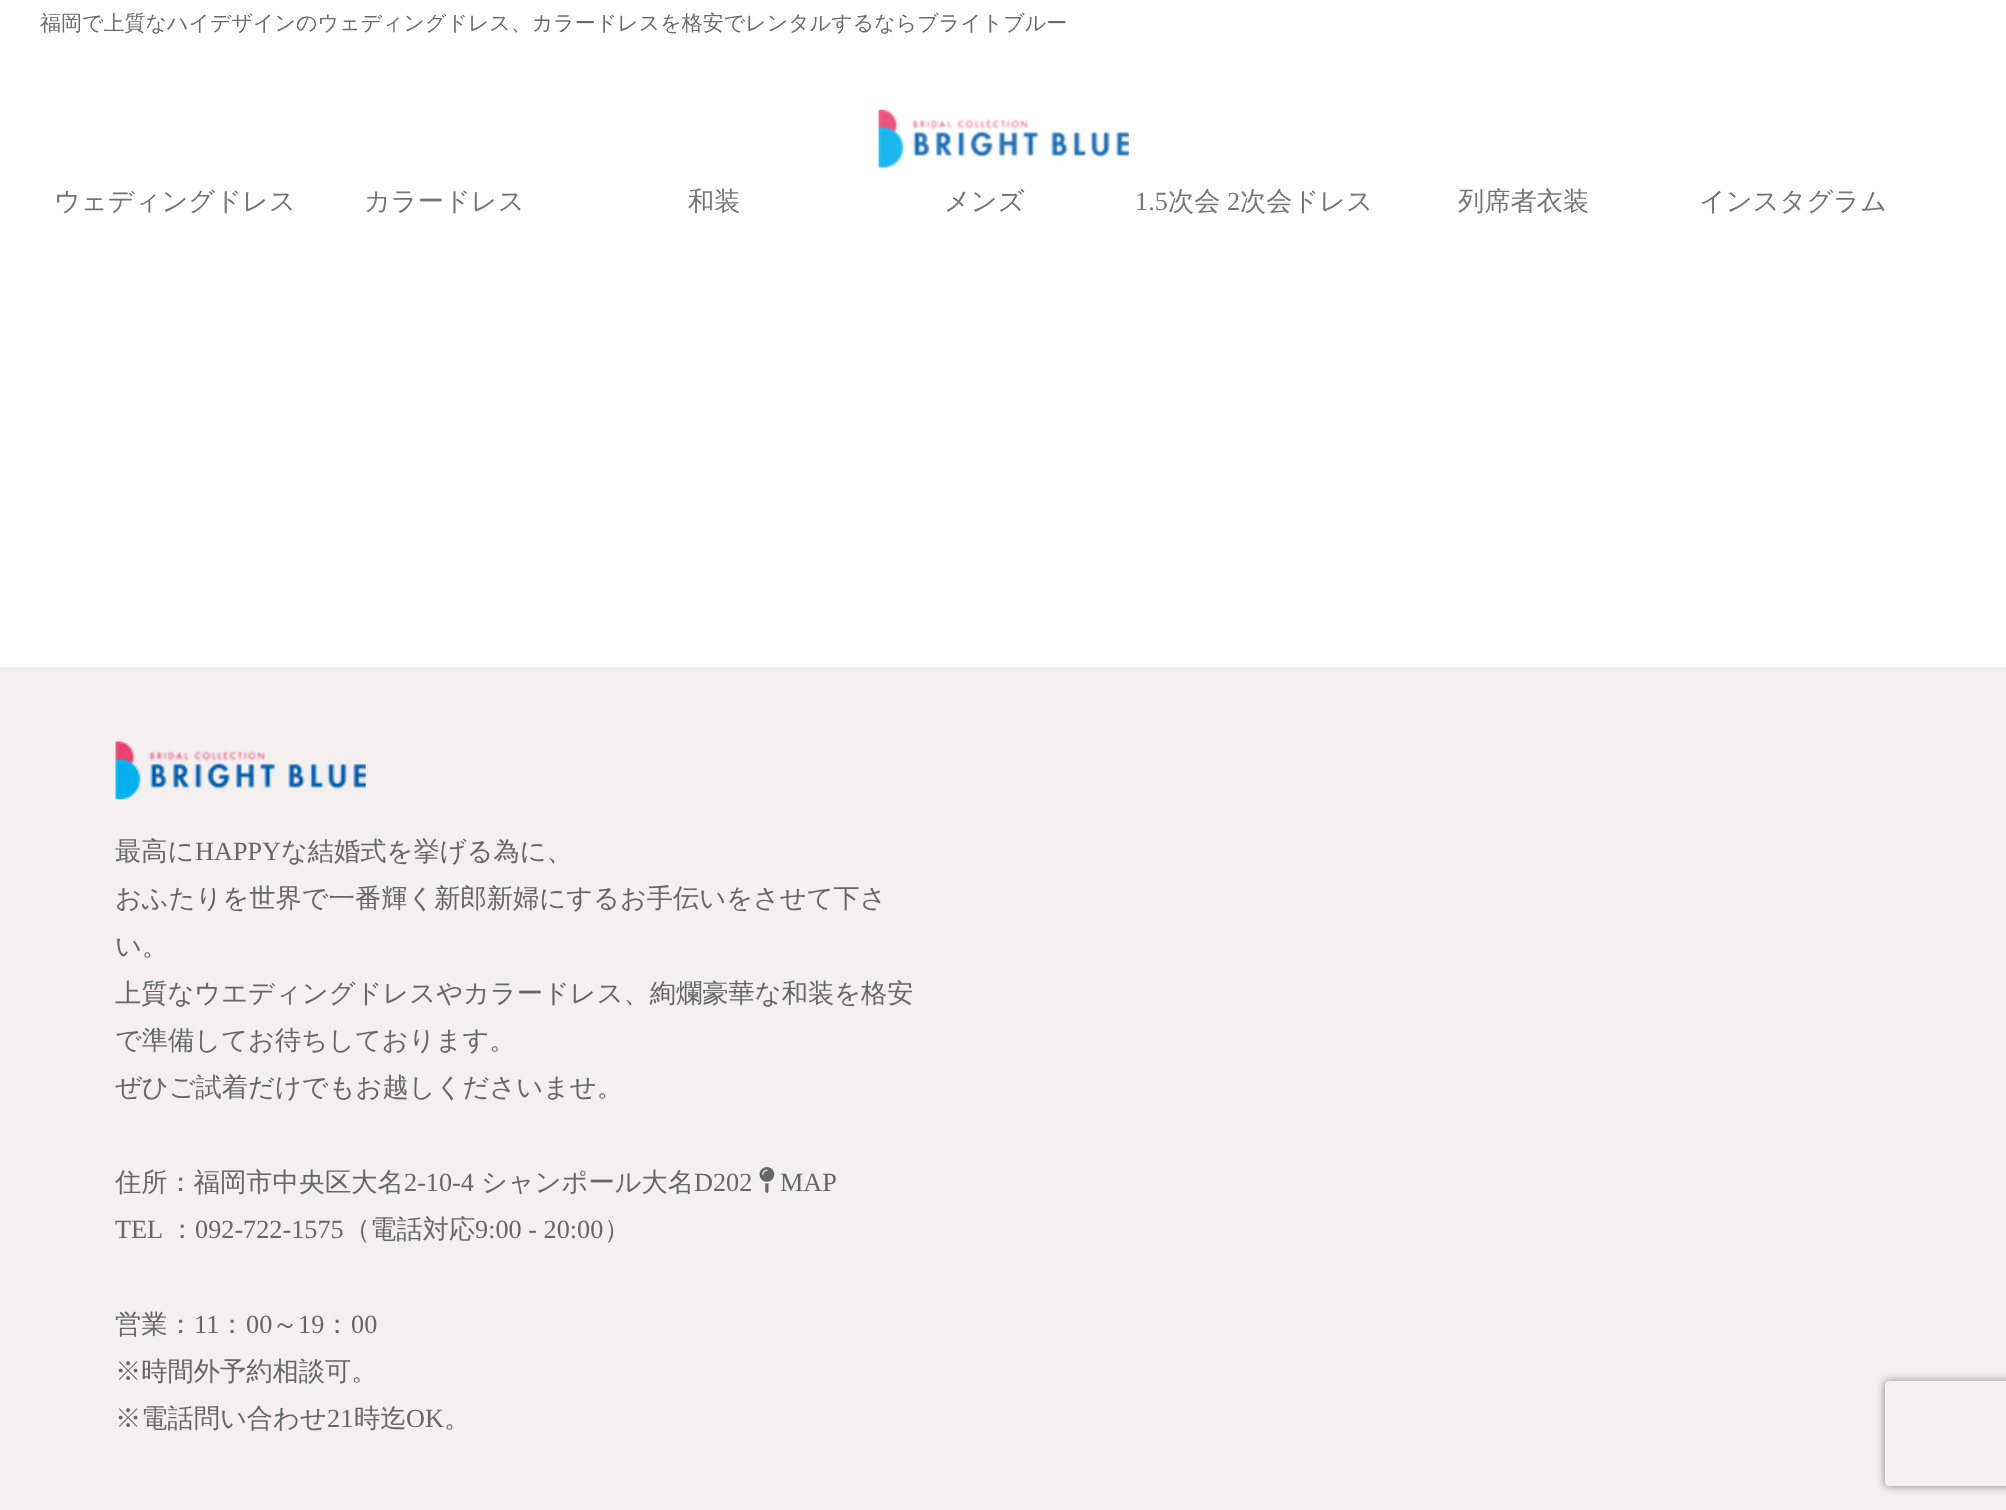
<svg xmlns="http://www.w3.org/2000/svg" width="2006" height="1510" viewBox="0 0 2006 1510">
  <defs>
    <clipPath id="clip1"><path d="M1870 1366H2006V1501H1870ZM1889 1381H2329C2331 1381 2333 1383 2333 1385V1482C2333 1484 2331 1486 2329 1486H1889C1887 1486 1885 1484 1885 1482V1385C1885 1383 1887 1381 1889 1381Z" clip-rule="evenodd"/></clipPath>
  </defs>
  <rect width="100%" height="100%" fill="#fff"/>
  <image x="877" y="109" width="252" height="59" href="img/1.png"/>
  <path d="M0 667h2006v843H0z" fill="#f4f0f0"/>
  <image x="115" y="741" width="251" height="59" href="img/2.png"/>
  <image x="759" y="1167" width="16" height="27" href="img/3.png"/>
  <g clip-path="url(#clip1)">
    <rect x="1885" y="1381" width="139" height="105" rx="4" fill="#808080" filter="blur(4.5px)"/>
  </g>
  <text x="40" y="30" font-family="WenQuanYi Zen Hei" font-size="21" font-weight="500" fill="#6c6c6c">福岡で上質なハイデザインのウェディングドレス、カラードレスを格安でレンタルするならブライトブルー</text>
  <g font-family="WenQuanYi Zen Hei" font-size="26.25" font-weight="500" fill="#757575">
    <text x="54" y="210">ウェディングドレス</text>
    <text x="364" y="210">カラードレス</text>
    <text x="688" y="210">和装</text>
    <text x="944" y="210">メンズ</text>
  </g>
  <text x="1135" y="210" font-family="Liberation Serif" font-size="26.25" fill="#757575">1.5</text>
  <text x="1168" y="210" font-family="WenQuanYi Zen Hei" font-size="26.25" font-weight="500" fill="#757575">次会</text>
  <text x="1227" y="210" font-family="Liberation Serif" font-size="26.25" fill="#757575">2</text>
  <g font-family="WenQuanYi Zen Hei" font-size="26.25" font-weight="500" fill="#757575">
    <text x="1240" y="210">次会ドレス</text>
    <text x="1458" y="210">列席者衣装</text>
    <text x="1699" y="210">インスタグラム</text>
  </g>
  <text x="115" y="860" font-family="WenQuanYi Zen Hei" font-size="26.25" font-weight="500" fill="#666">最高に</text>
  <text x="195" y="860" font-family="Liberation Serif" font-size="26.25" fill="#666">HAPPY</text>
  <g font-family="WenQuanYi Zen Hei" font-size="26.25" font-weight="500" fill="#666">
    <text x="281" y="860">な結婚式を挙げる為に、</text>
    <text x="115" y="907">おふたりを世界で一番輝く新郎新婦にするお手伝いをさせて下さ</text>
    <text x="115" y="955">い。</text>
    <text x="115" y="1002">上質なウエディングドレスやカラードレス、絢爛豪華な和装を格安</text>
    <text x="115" y="1049">で準備してお待ちしております。</text>
    <text x="115" y="1096">ぜひご試着だけでもお越しくださいませ。</text>
    <text x="115" y="1191">住所：福岡市中央区大名</text>
  </g>
  <text x="404" y="1191" font-family="Liberation Serif" font-size="26.25" fill="#666">2-10-4</text>
  <text x="481" y="1191" font-family="WenQuanYi Zen Hei" font-size="26.25" font-weight="500" fill="#666">シャンポール大名</text>
  <g font-family="Liberation Serif" font-size="26.25" fill="#666">
    <text x="694" y="1191">D202</text>
    <text x="780" y="1191">MAP</text>
    <text x="115" y="1238">TEL</text>
  </g>
  <text x="169" y="1238" font-family="WenQuanYi Zen Hei" font-size="26.25" font-weight="500" fill="#666">：</text>
  <text x="195" y="1238" font-family="Liberation Serif" font-size="26.25" fill="#666">092-722-1575</text>
  <text x="344" y="1238" font-family="WenQuanYi Zen Hei" font-size="26.25" font-weight="500" fill="#666">（電話対応</text>
  <text x="475" y="1238" font-family="Liberation Serif" font-size="26.25" fill="#666">9:00 - 20:00</text>
  <g font-family="WenQuanYi Zen Hei" font-size="26.25" font-weight="500" fill="#666">
    <text x="604" y="1238">）</text>
    <text x="115" y="1333">営業：</text>
  </g>
  <text x="194" y="1333" font-family="Liberation Serif" font-size="26.25" fill="#666">11</text>
  <text x="219" y="1333" font-family="WenQuanYi Zen Hei" font-size="26.25" font-weight="500" fill="#666">：</text>
  <text x="246" y="1333" font-family="Liberation Serif" font-size="26.25" fill="#666">00</text>
  <text x="272" y="1333" font-family="WenQuanYi Zen Hei" font-size="26.25" font-weight="500" fill="#666">～</text>
  <text x="298" y="1333" font-family="Liberation Serif" font-size="26.25" fill="#666">19</text>
  <text x="324" y="1333" font-family="WenQuanYi Zen Hei" font-size="26.25" font-weight="500" fill="#666">：</text>
  <text x="351" y="1333" font-family="Liberation Serif" font-size="26.25" fill="#666">00</text>
  <g font-family="WenQuanYi Zen Hei" font-size="26.25" font-weight="500" fill="#666">
    <text x="115" y="1380">※時間外予約相談可。</text>
    <text x="115" y="1427">※電話問い合わせ</text>
  </g>
  <text x="327" y="1427" font-family="Liberation Serif" font-size="26.25" fill="#666">21</text>
  <text x="354" y="1427" font-family="WenQuanYi Zen Hei" font-size="26.25" font-weight="500" fill="#666">時迄</text>
  <text x="406" y="1427" font-family="Liberation Serif" font-size="26.25" fill="#666">OK</text>
  <text x="444" y="1427" font-family="WenQuanYi Zen Hei" font-size="26.25" font-weight="500" fill="#666">。</text>
</svg>
